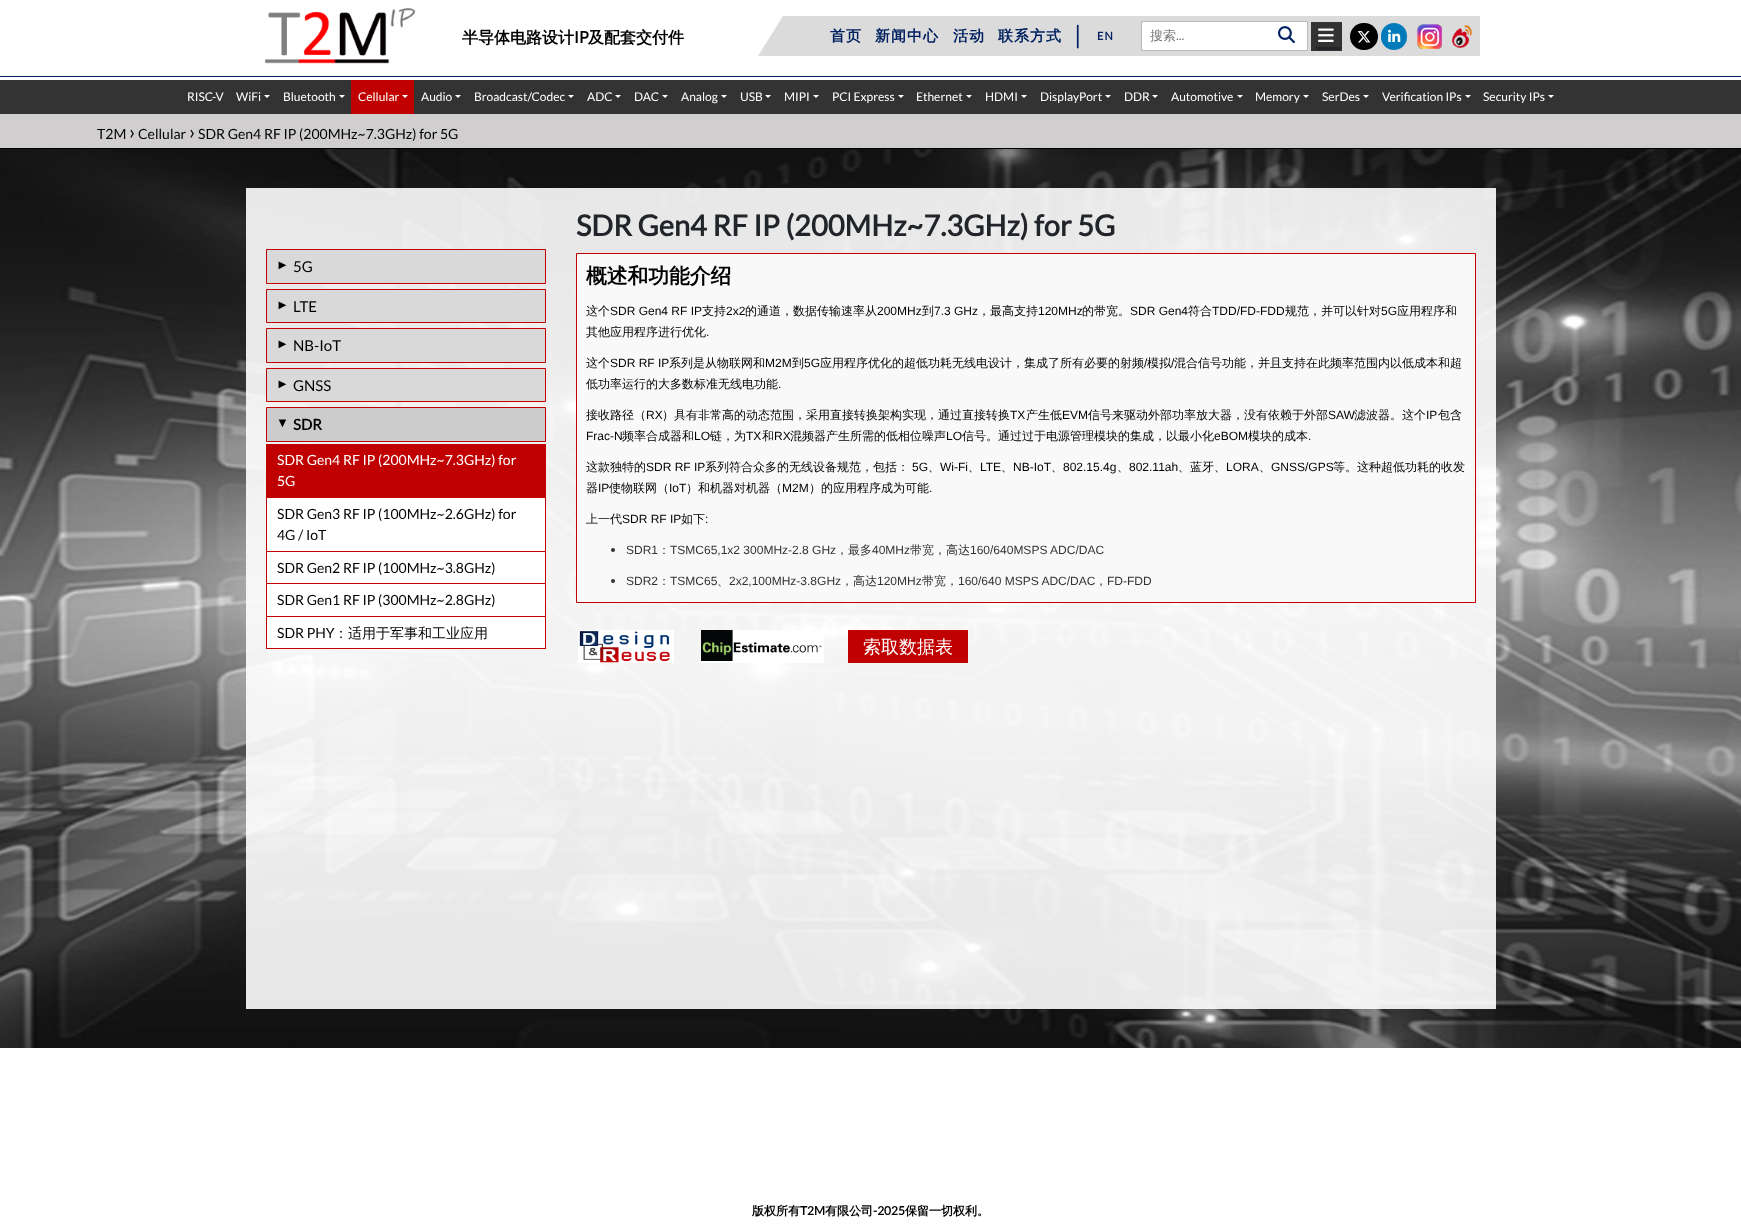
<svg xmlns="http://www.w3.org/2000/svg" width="1741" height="1225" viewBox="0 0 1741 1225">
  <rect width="100%" height="100%" fill="#fff"/>
  <image x="265" y="8" width="151" height="56" href="img/1.png"/>
  <path d="M781 16h699v40H781z" fill="#dbdbdb"/>
  <path d="M758 16H783L758 56Z" fill="#fff"/>
  <path d="M783 16V56H758Z" fill="#dbdbdb"/>
  <path d="M1141.5 21.5h166v29H1141.5z" fill="#fff" stroke="#beb9b9"/>
  <image x="1278" y="26" width="17" height="18" href="img/2.png"/>
  <path d="M1311 22h31v29H1311z" fill="#333"/>
  <image x="1318" y="28" width="16" height="14" href="img/3.png"/>
  <path d="M1315 47H1342L1339 50H1318Z" fill="#212529"/>
  <rect x="1350" y="23" width="28" height="27" rx="13.5" fill="#000"/>
  <image x="1357" y="31" width="14" height="12" href="img/4.png"/>
  <rect x="1381" y="23" width="26" height="27" rx="13" fill="#007ab9"/>
  <image x="1388" y="29" width="13" height="13" href="img/5.png"/>
  <image x="1417" y="24" width="25" height="25" href="img/6.png"/>
  <image x="1452" y="25" width="20" height="23" href="img/7.png"/>
  <path d="M0 76h1741v1H0z" fill="#002060"/>
  <path d="M0 80h1741v34H0z" fill="#333"/>
  <path d="M264 95H270L267 98Z" fill="#fff"/>
  <path d="M339 95H345L342 98Z" fill="#fff"/>
  <path d="M351 80h63v34H351z" fill="#c00000"/>
  <path d="M402 95H408L405 98Z" fill="#fff"/>
  <path d="M455 95H461L458 98Z" fill="#fff"/>
  <path d="M568 95H574L571 98Z" fill="#fff"/>
  <path d="M615 95H621L618 98Z" fill="#fff"/>
  <path d="M662 95H668L665 98Z" fill="#fff"/>
  <path d="M721 95H727L724 98Z" fill="#fff"/>
  <path d="M765 95H771L768 98Z" fill="#fff"/>
  <path d="M813 95H819L816 98Z" fill="#fff"/>
  <path d="M898 95H904L901 98Z" fill="#fff"/>
  <path d="M966 95H972L969 98Z" fill="#fff"/>
  <path d="M1021 95H1027L1024 98Z" fill="#fff"/>
  <path d="M1105 95H1111L1108 98Z" fill="#fff"/>
  <path d="M1152 95H1158L1155 98Z" fill="#fff"/>
  <path d="M1237 95H1243L1240 98Z" fill="#fff"/>
  <path d="M1303 95H1309L1306 98Z" fill="#fff"/>
  <path d="M1363 95H1369L1366 98Z" fill="#fff"/>
  <path d="M1465 95H1471L1468 98Z" fill="#fff"/>
  <path d="M1548 95H1554L1551 98Z" fill="#fff"/>
  <path d="M0 114h1741v34H0z" fill="#d0cece"/>
  <path d="M0 148h1741v1H0z" fill="#000"/>
  <image x="0" y="149" width="1741" height="899" href="img/8.png"/>
  <path d="M246 188h1250v821H246z" fill="#ffffffe6"/>
  <path d="M266.5 249.5h279v34H266.5z" fill="#d9d9d9" stroke="#c00000"/>
  <path d="M266.5 289.5h279v33H266.5z" fill="#d9d9d9" stroke="#c00000"/>
  <path d="M266.5 328.5h279v34H266.5z" fill="#d9d9d9" stroke="#c00000"/>
  <path d="M266.5 368.5h279v33H266.5z" fill="#d9d9d9" stroke="#c00000"/>
  <path d="M266.5 407.5h279v34H266.5z" fill="#ccc" stroke="#c00000"/>
  <path d="M267 498h278v150H267z" fill="#fff"/>
  <path d="M266 444h280v54H266z" fill="#c00000"/>
  <path d="M545 498h1v151H545z" fill="#c00000"/>
  <path d="M266 551h280v1H266z" fill="#c00000"/>
  <path d="M266 498h1v54H266z" fill="#c00000"/>
  <path d="M266 583h280v1H266z" fill="#c00000"/>
  <path d="M266 552h1v32H266z" fill="#c00000"/>
  <path d="M266 616h280v1H266z" fill="#c00000"/>
  <path d="M266 584h1v33H266z" fill="#c00000"/>
  <path d="M266 648h280v1H266z" fill="#c00000"/>
  <path d="M266 617h1v32H266z" fill="#c00000"/>
  <path d="M576.5 253.5h899v349H576.5z" fill="#f9f9f9" stroke="#c00000"/>
  <circle cx="613" cy="550" r="2" fill="#333"/>
  <circle cx="613" cy="581" r="2" fill="#333"/>
  <image x="578" y="630" width="96" height="33" href="img/9.png"/>
  <image x="701" y="630" width="123" height="33" href="img/10.png"/>
  <path d="M848 630h120v33H848z" fill="#c00000"/>
  <text x="462" y="43" font-family="WenQuanYi Zen Hei" font-size="16" font-weight="bold" fill="#000">半导体电路设计</text>
  <text x="574" y="43" font-family="Lato" font-size="16" font-weight="bold" fill="#000">IP</text>
  <text x="588" y="43" font-family="WenQuanYi Zen Hei" font-size="16" font-weight="bold" fill="#000">及配套交付件</text>
  <g font-family="WenQuanYi Zen Hei" font-size="15" font-weight="bold" letter-spacing="1" fill="#002060">
    <text x="830" y="41">首页</text>
    <text x="875" y="41">新闻中心</text>
    <text x="953" y="41">活动</text>
    <text x="998" y="41">联系方式</text>
  </g>
  <text x="1074" y="44" font-family="Lato" font-size="25" fill="#002060">|</text>
  <text x="1097" y="40" font-family="Lato" font-size="11" font-weight="bold" letter-spacing="1" fill="#002060">EN</text>
  <text x="1150" y="40" font-family="WenQuanYi Zen Hei" font-size="13" font-weight="500" fill="#757575">搜索</text>
  <text x="1176" y="40" font-family="Lato" font-size="13" fill="#757575">...</text>
  <g font-family="Lato" font-size="12" fill="#fff">
    <text x="187" y="101">RISC-V</text>
    <text x="236" y="101">WiFi</text>
    <text x="283" y="101">Bluetooth</text>
    <text x="358" y="101">Cellular</text>
    <text x="421" y="101">Audio</text>
    <text x="474" y="101">Broadcast/Codec</text>
    <text x="587" y="101">ADC</text>
    <text x="634" y="101">DAC</text>
    <text x="681" y="101">Analog</text>
    <text x="740" y="101">USB</text>
    <text x="784" y="101">MIPI</text>
    <text x="832" y="101">PCI Express</text>
    <text x="916" y="101">Ethernet</text>
    <text x="985" y="101">HDMI</text>
    <text x="1040" y="101">DisplayPort</text>
    <text x="1124" y="101">DDR</text>
    <text x="1171" y="101">Automotive</text>
    <text x="1255" y="101">Memory</text>
    <text x="1322" y="101">SerDes</text>
    <text x="1382" y="101">Verification IPs</text>
    <text x="1483" y="101">Security IPs</text>
  </g>
  <text x="97" y="139" font-family="Lato" font-size="14" fill="#000">T2M</text>
  <text x="129" y="139" font-family="Lato" font-size="20" fill="#000">›</text>
  <text x="138" y="139" font-family="Lato" font-size="14" fill="#000">Cellular</text>
  <text x="189" y="139" font-family="Lato" font-size="20" fill="#000">›</text>
  <text x="198" y="139" font-family="Lato" font-size="14" fill="#000">SDR Gen4 RF IP (200MHz~7.3GHz) for 5G</text>
  <text x="276" y="269" font-family="Liberation Sans" font-size="13" fill="#000">►</text>
  <text x="293" y="272" font-family="Lato" font-size="15" fill="#000">5G</text>
  <text x="276" y="309" font-family="Liberation Sans" font-size="13" fill="#000">►</text>
  <text x="293" y="312" font-family="Lato" font-size="15" fill="#000">LTE</text>
  <text x="276" y="348" font-family="Liberation Sans" font-size="13" fill="#000">►</text>
  <text x="293" y="351" font-family="Lato" font-size="15" fill="#000">NB-IoT</text>
  <text x="276" y="388" font-family="Liberation Sans" font-size="13" fill="#000">►</text>
  <text x="293" y="391" font-family="Lato" font-size="15" fill="#000">GNSS</text>
  <text x="276" y="427" font-family="Liberation Sans" font-size="13" font-weight="bold" fill="#000">▼</text>
  <text x="293" y="430" font-family="Lato" font-size="15" font-weight="bold" fill="#000">SDR</text>
  <g font-family="Lato" font-size="14" fill="#fff">
    <text x="277" y="465">SDR Gen4 RF IP (200MHz~7.3GHz) for</text>
    <text x="277" y="486">5G</text>
  </g>
  <g font-family="Lato" font-size="14" fill="#000">
    <text x="277" y="519">SDR Gen3 RF IP (100MHz~2.6GHz) for</text>
    <text x="277" y="540">4G / IoT</text>
    <text x="277" y="573">SDR Gen2 RF IP (100MHz~3.8GHz)</text>
    <text x="277" y="605">SDR Gen1 RF IP (300MHz~2.8GHz)</text>
    <text x="277" y="638">SDR PHY</text>
  </g>
  <text x="334" y="638" font-family="WenQuanYi Zen Hei" font-size="14" font-weight="500" fill="#000">：适用于军事和工业应用</text>
  <text x="576" y="236" font-family="Lato" font-size="29" font-weight="bold" fill="#212529">SDR Gen4 RF IP (200MHz~7.3GHz) for 5G</text>
  <text x="586" y="283" font-family="WenQuanYi Zen Hei" font-size="20.75" font-weight="bold" fill="#000">概述和功能介绍</text>
  <text x="586" y="315" font-family="WenQuanYi Zen Hei" font-size="12" font-weight="500" fill="#000">这个</text>
  <text x="610" y="315" font-family="Liberation Sans" font-size="12" fill="#000">SDR Gen4 RF IP</text>
  <text x="702" y="315" font-family="WenQuanYi Zen Hei" font-size="12" font-weight="500" fill="#000">支持</text>
  <text x="726" y="315" font-family="Liberation Sans" font-size="12" fill="#000">2x2</text>
  <text x="745" y="315" font-family="WenQuanYi Zen Hei" font-size="12" font-weight="500" fill="#000">的通道，数据传输速率从</text>
  <text x="877" y="315" font-family="Liberation Sans" font-size="12" fill="#000">200MHz</text>
  <text x="922" y="315" font-family="WenQuanYi Zen Hei" font-size="12" font-weight="500" fill="#000">到</text>
  <text x="934" y="315" font-family="Liberation Sans" font-size="12" fill="#000">7.3 GHz</text>
  <text x="978" y="315" font-family="WenQuanYi Zen Hei" font-size="12" font-weight="500" fill="#000">，最高支持</text>
  <text x="1038" y="315" font-family="Liberation Sans" font-size="12" fill="#000">120MHz</text>
  <text x="1082" y="315" font-family="WenQuanYi Zen Hei" font-size="12" font-weight="500" fill="#000">的带宽。</text>
  <text x="1130" y="315" font-family="Liberation Sans" font-size="12" fill="#000">SDR Gen4</text>
  <text x="1188" y="315" font-family="WenQuanYi Zen Hei" font-size="12" font-weight="500" fill="#000">符合</text>
  <text x="1212" y="315" font-family="Liberation Sans" font-size="12" fill="#000">TDD/FD-FDD</text>
  <text x="1285" y="315" font-family="WenQuanYi Zen Hei" font-size="12" font-weight="500" fill="#000">规范，并可以针对</text>
  <text x="1381" y="315" font-family="Liberation Sans" font-size="12" fill="#000">5G</text>
  <g font-family="WenQuanYi Zen Hei" font-size="12" font-weight="500" fill="#000">
    <text x="1397" y="315">应用程序和</text>
    <text x="586" y="336">其他应用程序进行优化</text>
  </g>
  <text x="706" y="336" font-family="Liberation Sans" font-size="12" fill="#000">.</text>
  <text x="586" y="367" font-family="WenQuanYi Zen Hei" font-size="12" font-weight="500" fill="#000">这个</text>
  <text x="610" y="367" font-family="Liberation Sans" font-size="12" fill="#000">SDR RF IP</text>
  <text x="669" y="367" font-family="WenQuanYi Zen Hei" font-size="12" font-weight="500" fill="#000">系列是从物联网和</text>
  <text x="765" y="367" font-family="Liberation Sans" font-size="12" fill="#000">M2M</text>
  <text x="792" y="367" font-family="WenQuanYi Zen Hei" font-size="12" font-weight="500" fill="#000">到</text>
  <text x="804" y="367" font-family="Liberation Sans" font-size="12" fill="#000">5G</text>
  <text x="820" y="367" font-family="WenQuanYi Zen Hei" font-size="12" font-weight="500" fill="#000">应用程序优化的超低功耗无线电设计，集成了所有必要的射频</text>
  <text x="1144" y="367" font-family="Liberation Sans" font-size="12" fill="#000">/</text>
  <text x="1147" y="367" font-family="WenQuanYi Zen Hei" font-size="12" font-weight="500" fill="#000">模拟</text>
  <text x="1171" y="367" font-family="Liberation Sans" font-size="12" fill="#000">/</text>
  <g font-family="WenQuanYi Zen Hei" font-size="12" font-weight="500" fill="#000">
    <text x="1174" y="367">混合信号功能，并且支持在此频率范围内以低成本和超</text>
    <text x="586" y="388">低功率运行的大多数标准无线电功能</text>
  </g>
  <text x="778" y="388" font-family="Liberation Sans" font-size="12" fill="#000">.</text>
  <text x="586" y="419" font-family="WenQuanYi Zen Hei" font-size="12" font-weight="500" fill="#000">接收路径（</text>
  <text x="646" y="419" font-family="Liberation Sans" font-size="12" fill="#000">RX</text>
  <text x="662" y="419" font-family="WenQuanYi Zen Hei" font-size="12" font-weight="500" fill="#000">）具有非常高的动态范围，采用直接转换架构实现，通过直接转换</text>
  <text x="1010" y="419" font-family="Liberation Sans" font-size="12" fill="#000">TX</text>
  <text x="1026" y="419" font-family="WenQuanYi Zen Hei" font-size="12" font-weight="500" fill="#000">产生低</text>
  <text x="1062" y="419" font-family="Liberation Sans" font-size="12" fill="#000">EVM</text>
  <text x="1088" y="419" font-family="WenQuanYi Zen Hei" font-size="12" font-weight="500" fill="#000">信号来驱动外部功率放大器，没有依赖于外部</text>
  <text x="1328" y="419" font-family="Liberation Sans" font-size="12" fill="#000">SAW</text>
  <text x="1354" y="419" font-family="WenQuanYi Zen Hei" font-size="12" font-weight="500" fill="#000">滤波器。这个</text>
  <text x="1426" y="419" font-family="Liberation Sans" font-size="12" fill="#000">IP</text>
  <text x="1438" y="419" font-family="WenQuanYi Zen Hei" font-size="12" font-weight="500" fill="#000">包含</text>
  <text x="586" y="440" font-family="Liberation Sans" font-size="12" fill="#000">Frac-N</text>
  <text x="622" y="440" font-family="WenQuanYi Zen Hei" font-size="12" font-weight="500" fill="#000">频率合成器和</text>
  <text x="694" y="440" font-family="Liberation Sans" font-size="12" fill="#000">LO</text>
  <text x="710" y="440" font-family="WenQuanYi Zen Hei" font-size="12" font-weight="500" fill="#000">链，为</text>
  <text x="746" y="440" font-family="Liberation Sans" font-size="12" fill="#000">TX</text>
  <text x="762" y="440" font-family="WenQuanYi Zen Hei" font-size="12" font-weight="500" fill="#000">和</text>
  <text x="774" y="440" font-family="Liberation Sans" font-size="12" fill="#000">RX</text>
  <text x="790" y="440" font-family="WenQuanYi Zen Hei" font-size="12" font-weight="500" fill="#000">混频器产生所需的低相位噪声</text>
  <text x="946" y="440" font-family="Liberation Sans" font-size="12" fill="#000">LO</text>
  <text x="962" y="440" font-family="WenQuanYi Zen Hei" font-size="12" font-weight="500" fill="#000">信号。通过过于电源管理模块的集成，以最小化</text>
  <text x="1214" y="440" font-family="Liberation Sans" font-size="12" fill="#000">eBOM</text>
  <text x="1248" y="440" font-family="WenQuanYi Zen Hei" font-size="12" font-weight="500" fill="#000">模块的成本</text>
  <text x="1308" y="440" font-family="Liberation Sans" font-size="12" fill="#000">.</text>
  <text x="586" y="471" font-family="WenQuanYi Zen Hei" font-size="12" font-weight="500" fill="#000">这款独特的</text>
  <text x="646" y="471" font-family="Liberation Sans" font-size="12" fill="#000">SDR RF IP</text>
  <text x="705" y="471" font-family="WenQuanYi Zen Hei" font-size="12" font-weight="500" fill="#000">系列符合众多的无线设备规范，包括：</text>
  <text x="912" y="471" font-family="Liberation Sans" font-size="12" fill="#000">5G</text>
  <text x="928" y="471" font-family="WenQuanYi Zen Hei" font-size="12" font-weight="500" fill="#000">、</text>
  <text x="940" y="471" font-family="Liberation Sans" font-size="12" fill="#000">Wi-Fi</text>
  <text x="968" y="471" font-family="WenQuanYi Zen Hei" font-size="12" font-weight="500" fill="#000">、</text>
  <text x="980" y="471" font-family="Liberation Sans" font-size="12" fill="#000">LTE</text>
  <text x="1001" y="471" font-family="WenQuanYi Zen Hei" font-size="12" font-weight="500" fill="#000">、</text>
  <text x="1013" y="471" font-family="Liberation Sans" font-size="12" fill="#000">NB-IoT</text>
  <text x="1051" y="471" font-family="WenQuanYi Zen Hei" font-size="12" font-weight="500" fill="#000">、</text>
  <text x="1063" y="471" font-family="Liberation Sans" font-size="12" fill="#000">802.15.4g</text>
  <text x="1117" y="471" font-family="WenQuanYi Zen Hei" font-size="12" font-weight="500" fill="#000">、</text>
  <text x="1129" y="471" font-family="Liberation Sans" font-size="12" fill="#000">802.11ah</text>
  <text x="1178" y="471" font-family="WenQuanYi Zen Hei" font-size="12" font-weight="500" fill="#000">、蓝牙、</text>
  <text x="1226" y="471" font-family="Liberation Sans" font-size="12" fill="#000">LORA</text>
  <text x="1259" y="471" font-family="WenQuanYi Zen Hei" font-size="12" font-weight="500" fill="#000">、</text>
  <text x="1271" y="471" font-family="Liberation Sans" font-size="12" fill="#000">GNSS/GPS</text>
  <g font-family="WenQuanYi Zen Hei" font-size="12" font-weight="500" fill="#000">
    <text x="1333" y="471">等。这种超低功耗的收发</text>
    <text x="586" y="492">器</text>
  </g>
  <text x="598" y="492" font-family="Liberation Sans" font-size="12" fill="#000">IP</text>
  <text x="609" y="492" font-family="WenQuanYi Zen Hei" font-size="12" font-weight="500" fill="#000">使物联网（</text>
  <text x="669" y="492" font-family="Liberation Sans" font-size="12" fill="#000">IoT</text>
  <text x="686" y="492" font-family="WenQuanYi Zen Hei" font-size="12" font-weight="500" fill="#000">）和机器对机器（</text>
  <text x="782" y="492" font-family="Liberation Sans" font-size="12" fill="#000">M2M</text>
  <text x="809" y="492" font-family="WenQuanYi Zen Hei" font-size="12" font-weight="500" fill="#000">）的应用程序成为可能</text>
  <text x="929" y="492" font-family="Liberation Sans" font-size="12" fill="#000">.</text>
  <text x="586" y="523" font-family="WenQuanYi Zen Hei" font-size="12" font-weight="500" fill="#000">上一代</text>
  <text x="622" y="523" font-family="Liberation Sans" font-size="12" fill="#000">SDR RF IP</text>
  <text x="681" y="523" font-family="WenQuanYi Zen Hei" font-size="12" font-weight="500" fill="#000">如下</text>
  <text x="705" y="523" font-family="Liberation Sans" font-size="12" fill="#000">:</text>
  <text x="626" y="554" font-family="Liberation Sans" font-size="12" fill="#333">SDR1</text>
  <text x="658" y="554" font-family="WenQuanYi Zen Hei" font-size="12" font-weight="500" fill="#333">：</text>
  <text x="670" y="554" font-family="Liberation Sans" font-size="12" fill="#333">TSMC65,1x2 300MHz-2.8 GHz</text>
  <text x="836" y="554" font-family="WenQuanYi Zen Hei" font-size="12" font-weight="500" fill="#333">，最多</text>
  <text x="872" y="554" font-family="Liberation Sans" font-size="12" fill="#333">40MHz</text>
  <text x="910" y="554" font-family="WenQuanYi Zen Hei" font-size="12" font-weight="500" fill="#333">带宽，高达</text>
  <g font-family="Liberation Sans" font-size="12" fill="#333">
    <text x="970" y="554">160/640MSPS ADC/DAC</text>
    <text x="626" y="585">SDR2</text>
  </g>
  <text x="658" y="585" font-family="WenQuanYi Zen Hei" font-size="12" font-weight="500" fill="#333">：</text>
  <g font-family="Liberation Sans" font-size="12" fill="#333">
    <text x="670" y="585">TSMC65</text>
    <text x="729" y="585">2x2,100MHz-3.8GHz</text>
  </g>
  <text x="841" y="585" font-family="WenQuanYi Zen Hei" font-size="12" font-weight="500" fill="#333">，高达</text>
  <text x="877" y="585" font-family="Liberation Sans" font-size="12" fill="#333">120MHz</text>
  <text x="922" y="585" font-family="WenQuanYi Zen Hei" font-size="12" font-weight="500" fill="#333">带宽，</text>
  <g font-family="Liberation Sans" font-size="12" fill="#333">
    <text x="958" y="585">160/640 MSPS ADC/DAC</text>
    <text x="1107" y="585">FD-FDD</text>
  </g>
  <g font-family="WenQuanYi Zen Hei" font-size="12" font-weight="500" fill="#333">
    <text x="717" y="585">、</text>
    <text x="1095" y="585">，</text>
  </g>
  <text x="863" y="653" font-family="WenQuanYi Zen Hei" font-size="18" font-weight="500" fill="#fff">索取数据表</text>
  <text x="752" y="1215" font-family="WenQuanYi Zen Hei" font-size="12" font-weight="bold" fill="#000">版权所有</text>
  <text x="800" y="1215" font-family="Lato" font-size="12" font-weight="bold" fill="#000">T2M</text>
  <text x="825" y="1215" font-family="WenQuanYi Zen Hei" font-size="12" font-weight="bold" fill="#000">有限公司</text>
  <text x="873" y="1215" font-family="Lato" font-size="12" font-weight="bold" fill="#000">-2025</text>
  <text x="905" y="1215" font-family="WenQuanYi Zen Hei" font-size="12" font-weight="bold" fill="#000">保留一切权利。</text>
</svg>
